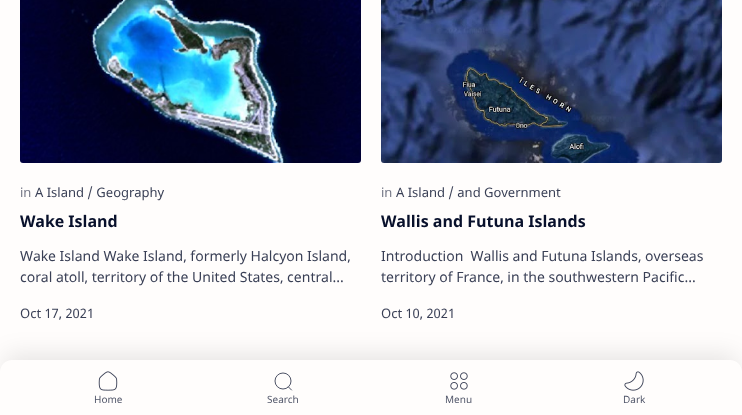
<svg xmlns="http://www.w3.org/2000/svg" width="742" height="415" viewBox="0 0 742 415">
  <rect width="100%" height="100%" fill="#fffdfc"/>
  <image x="20" y="0" width="341" height="163" href="img/1.png"/>
  <image x="381" y="0" width="341" height="163" href="img/2.png"/>
  <rect x="5" y="355" width="732" height="45" rx="7" fill="#0000001a" filter="blur(12.5px)"/>
  <path d="M12 360H730C736.5 360 742 365.5 742 372V415H0V372C0 365.5 5.5 360 12 360Z" fill="#fffdfc"/>
  <image x="98" y="371" width="20" height="20" href="img/3.png"/>
  <circle cx="283" cy="381" r="8" fill="none" stroke="#393f55" stroke-width="0.9"/>
  <path d="M288.5 387L291.5 390" fill="none" stroke="#393f55" stroke-width="0.9" stroke-linecap="round" stroke-linejoin="round"/>
  <image x="450" y="372" width="18" height="18" href="img/4.png"/>
  <image x="624" y="371" width="20" height="20" href="img/5.png"/>
  <text x="20" y="197" font-family="Noto Sans" font-size="13" fill="#757887">in</text>
  <text x="35" y="197" font-family="Noto Sans" font-size="13" fill="#393f55">A Island / Geography</text>
  <text x="20" y="227" font-family="Noto Sans" font-size="16" font-weight="bold" fill="#08102b">Wake Island</text>
  <g font-family="Noto Sans" font-size="14" fill="#393f55">
    <text x="20" y="261">Wake Island Wake Island, formerly Halcyon Island,</text>
    <text x="20" y="282">coral atoll, territory of the United States, central…</text>
  </g>
  <text x="20" y="318" font-family="Noto Sans" font-size="13" fill="#393f55">Oct 17, 2021</text>
  <text x="381" y="197" font-family="Noto Sans" font-size="13" fill="#757887">in</text>
  <text x="396" y="197" font-family="Noto Sans" font-size="13" fill="#393f55">A Island / and Government</text>
  <text x="381" y="227" font-family="Noto Sans" font-size="16" font-weight="bold" fill="#08102b">Wallis and Futuna Islands</text>
  <g font-family="Noto Sans" font-size="14" fill="#393f55">
    <text x="381" y="261" xml:space="preserve">Introduction  Wallis and Futuna Islands, overseas</text>
    <text x="381" y="282">territory of France, in the southwestern Pacific…</text>
  </g>
  <text x="381" y="318" font-family="Noto Sans" font-size="13" fill="#393f55">Oct 10, 2021</text>
  <g font-family="Noto Sans" font-size="10" fill="#52576a">
    <text x="94" y="403">Home</text>
    <text x="267" y="403">Search</text>
    <text x="445" y="403">Menu</text>
    <text x="623" y="403">Dark</text>
  </g>
</svg>
